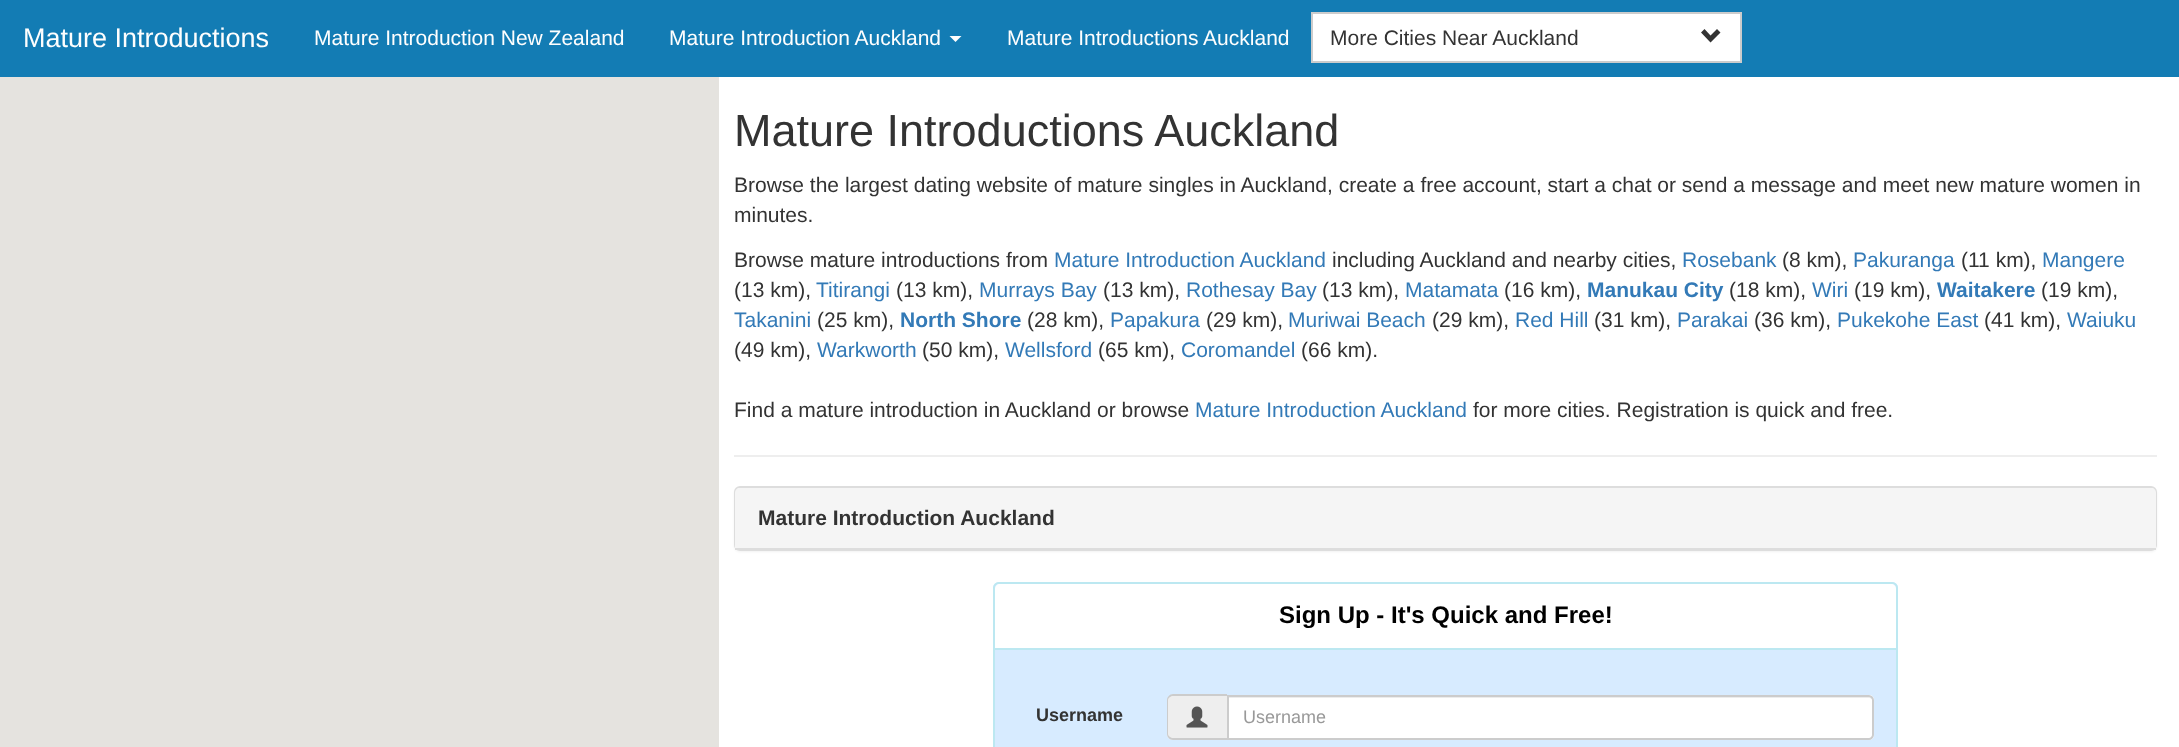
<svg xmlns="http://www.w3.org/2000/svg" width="2179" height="747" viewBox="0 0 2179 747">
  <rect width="100%" height="100%" fill="#fff"/>
  <path d="M0 0h2179v77H0z" fill="#137cb4"/>
  <path d="M949.5 36H961.5L955.5 42Z" fill="#fefefe"/>
  <path d="M1312 13h429v49H1312z" fill="#fff" stroke="#ccc" stroke-width="2"/>
  <path d="M1720.5 32.5L1710.5 42.5L1701 32.5L1704.5 29L1710.5 35.5L1717 29Z" fill="#333"/>
  <path d="M0 77h719v670H0z" fill="#e5e3df"/>
  <path d="M734 455h1423v2H734z" fill="#eee"/>
  <rect x="734" y="488" width="1423" height="64" rx="6" fill="#0000000d" filter="blur(1px)"/>
  <rect x="735" y="487" width="1421" height="63" rx="5" fill="none" stroke="#ddd" stroke-width="2"/>
  <path d="M740 488H2151C2154 488 2156 490 2156 493V549H735V493C735 490 737 488 740 488Z" fill="#f5f5f5"/>
  <path d="M735 548h1421v2H735z" fill="#ddd"/>
  <path d="M999 582H1892C1895.5 582 1898 584.5 1898 588V747H993V588C993 584.5 995.5 582 999 582Z" fill="#d7ebff"/>
  <rect x="994" y="583" width="903" height="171" rx="5" fill="none" stroke="#bce8f1" stroke-width="2"/>
  <path d="M1000 584H1891C1894 584 1896 586 1896 589V650H995V589C995 586 997 584 1000 584Z" fill="#fff"/>
  <path d="M995 648h901v2H995z" fill="#bce8f1"/>
  <path d="M1173 695H1227V740H1173C1169.5 740 1167 737.5 1167 734V701C1167 697.5 1169.5 695 1173 695Z" fill="#eee"/>
  <path d="M1173 694H1227V740H1173C1170 740 1167 737 1167 734V700C1167 697 1170 694 1173 694ZM1173 696H1227V738H1173C1171 738 1168 736 1168 734V700C1168 698 1171 696 1173 696Z" fill="#ccc" fill-rule="evenodd"/>
  <image x="1186" y="706" width="22" height="22" href="img/1.png"/>
  <path d="M1227 695H1869C1872 695 1874 697 1874 700V735C1874 738 1872 740 1869 740H1227Z" fill="#fff"/>
  <path d="M1229 696V698H1869C1871 698 1872 699 1872 700C1872 698 1871 696 1869 696Z" fill="#ececec"/>
  <path d="M1228 696H1869C1871 696 1873 698 1873 700V735C1873 737 1871 739 1869 739H1228Z" fill="none" stroke="#ccc" stroke-width="2"/>
  <text x="23" y="47" font-family="Liberation Sans" font-size="27" fill="#fefefe">Mature Introductions</text>
  <g font-family="Liberation Sans" font-size="21" fill="#fefefe">
    <text x="314" y="45">Mature Introduction New Zealand</text>
    <text x="669" y="45">Mature Introduction Auckland</text>
    <text x="1007" y="45">Mature Introductions Auckland</text>
  </g>
  <text x="1330" y="45" font-family="Liberation Sans" font-size="21" fill="#333">More Cities Near Auckland</text>
  <text x="734" y="146" font-family="Liberation Sans" font-size="45" fill="#333">Mature Introductions Auckland</text>
  <g font-family="Liberation Sans" font-size="21" fill="#333">
    <text x="734" y="192">Browse the largest dating website of mature singles in Auckland, create a free account, start a chat or send a message and meet new mature women in</text>
    <text x="734" y="222">minutes.</text>
    <text x="734" y="267">Browse mature introductions from</text>
  </g>
  <text x="1054" y="267" font-family="Liberation Sans" font-size="21" fill="#337ab7">Mature Introduction Auckland</text>
  <text x="1332" y="267" font-family="Liberation Sans" font-size="21" fill="#333">including Auckland and nearby cities,</text>
  <text x="1682" y="267" font-family="Liberation Sans" font-size="21" fill="#337ab7">Rosebank</text>
  <text x="1782" y="267" font-family="Liberation Sans" font-size="21" fill="#333">(8 km),</text>
  <text x="1853" y="267" font-family="Liberation Sans" font-size="21" fill="#337ab7">Pakuranga</text>
  <text x="1961" y="267" font-family="Liberation Sans" font-size="21" fill="#333">(11 km),</text>
  <text x="2042" y="267" font-family="Liberation Sans" font-size="21" fill="#337ab7">Mangere</text>
  <text x="734" y="297" font-family="Liberation Sans" font-size="21" fill="#333">(13 km),</text>
  <text x="816" y="297" font-family="Liberation Sans" font-size="21" fill="#337ab7">Titirangi</text>
  <text x="896" y="297" font-family="Liberation Sans" font-size="21" fill="#333">(13 km),</text>
  <text x="979" y="297" font-family="Liberation Sans" font-size="21" fill="#337ab7">Murrays Bay</text>
  <text x="1103" y="297" font-family="Liberation Sans" font-size="21" fill="#333">(13 km),</text>
  <text x="1186" y="297" font-family="Liberation Sans" font-size="21" fill="#337ab7">Rothesay Bay</text>
  <text x="1322" y="297" font-family="Liberation Sans" font-size="21" fill="#333">(13 km),</text>
  <text x="1405" y="297" font-family="Liberation Sans" font-size="21" fill="#337ab7">Matamata</text>
  <text x="1504" y="297" font-family="Liberation Sans" font-size="21" fill="#333">(16 km),</text>
  <text x="1587" y="297" font-family="Liberation Sans" font-size="21" font-weight="bold" fill="#337ab7">Manukau City</text>
  <text x="1729" y="297" font-family="Liberation Sans" font-size="21" fill="#333">(18 km),</text>
  <text x="1812" y="297" font-family="Liberation Sans" font-size="21" fill="#337ab7">Wiri</text>
  <text x="1854" y="297" font-family="Liberation Sans" font-size="21" fill="#333">(19 km),</text>
  <text x="1937" y="297" font-family="Liberation Sans" font-size="21" font-weight="bold" fill="#337ab7">Waitakere</text>
  <text x="2041" y="297" font-family="Liberation Sans" font-size="21" fill="#333">(19 km),</text>
  <text x="734" y="327" font-family="Liberation Sans" font-size="21" fill="#337ab7">Takanini</text>
  <text x="817" y="327" font-family="Liberation Sans" font-size="21" fill="#333">(25 km),</text>
  <text x="900" y="327" font-family="Liberation Sans" font-size="21" font-weight="bold" fill="#337ab7">North Shore</text>
  <text x="1027" y="327" font-family="Liberation Sans" font-size="21" fill="#333">(28 km),</text>
  <text x="1110" y="327" font-family="Liberation Sans" font-size="21" fill="#337ab7">Papakura</text>
  <text x="1206" y="327" font-family="Liberation Sans" font-size="21" fill="#333">(29 km),</text>
  <text x="1288" y="327" font-family="Liberation Sans" font-size="21" fill="#337ab7">Muriwai Beach</text>
  <text x="1432" y="327" font-family="Liberation Sans" font-size="21" fill="#333">(29 km),</text>
  <text x="1515" y="327" font-family="Liberation Sans" font-size="21" fill="#337ab7">Red Hill</text>
  <text x="1594" y="327" font-family="Liberation Sans" font-size="21" fill="#333">(31 km),</text>
  <text x="1677" y="327" font-family="Liberation Sans" font-size="21" fill="#337ab7">Parakai</text>
  <text x="1754" y="327" font-family="Liberation Sans" font-size="21" fill="#333">(36 km),</text>
  <text x="1837" y="327" font-family="Liberation Sans" font-size="21" fill="#337ab7">Pukekohe East</text>
  <text x="1984" y="327" font-family="Liberation Sans" font-size="21" fill="#333">(41 km),</text>
  <text x="2067" y="327" font-family="Liberation Sans" font-size="21" fill="#337ab7">Waiuku</text>
  <text x="734" y="357" font-family="Liberation Sans" font-size="21" fill="#333">(49 km),</text>
  <text x="817" y="357" font-family="Liberation Sans" font-size="21" fill="#337ab7">Warkworth</text>
  <text x="922" y="357" font-family="Liberation Sans" font-size="21" fill="#333">(50 km),</text>
  <text x="1005" y="357" font-family="Liberation Sans" font-size="21" fill="#337ab7">Wellsford</text>
  <text x="1098" y="357" font-family="Liberation Sans" font-size="21" fill="#333">(65 km),</text>
  <text x="1181" y="357" font-family="Liberation Sans" font-size="21" fill="#337ab7">Coromandel</text>
  <g font-family="Liberation Sans" font-size="21" fill="#333">
    <text x="1301" y="357">(66 km).</text>
    <text x="734" y="417">Find a mature introduction in Auckland or browse</text>
  </g>
  <text x="1195" y="417" font-family="Liberation Sans" font-size="21" fill="#337ab7">Mature Introduction Auckland</text>
  <text x="1473" y="417" font-family="Liberation Sans" font-size="21" fill="#333">for more cities. Registration is quick and free.</text>
  <text x="758" y="525" font-family="Liberation Sans" font-size="21" font-weight="bold" fill="#333">Mature Introduction Auckland</text>
  <text x="1279" y="623" font-family="Liberation Sans" font-size="24" font-weight="bold" fill="#000">Sign Up - It's Quick and Free!</text>
  <text x="1036" y="721" font-family="Liberation Sans" font-size="18" font-weight="bold" fill="#333">Username</text>
  <text x="1243" y="723" font-family="Liberation Sans" font-size="18" fill="#999">Username</text>
</svg>
